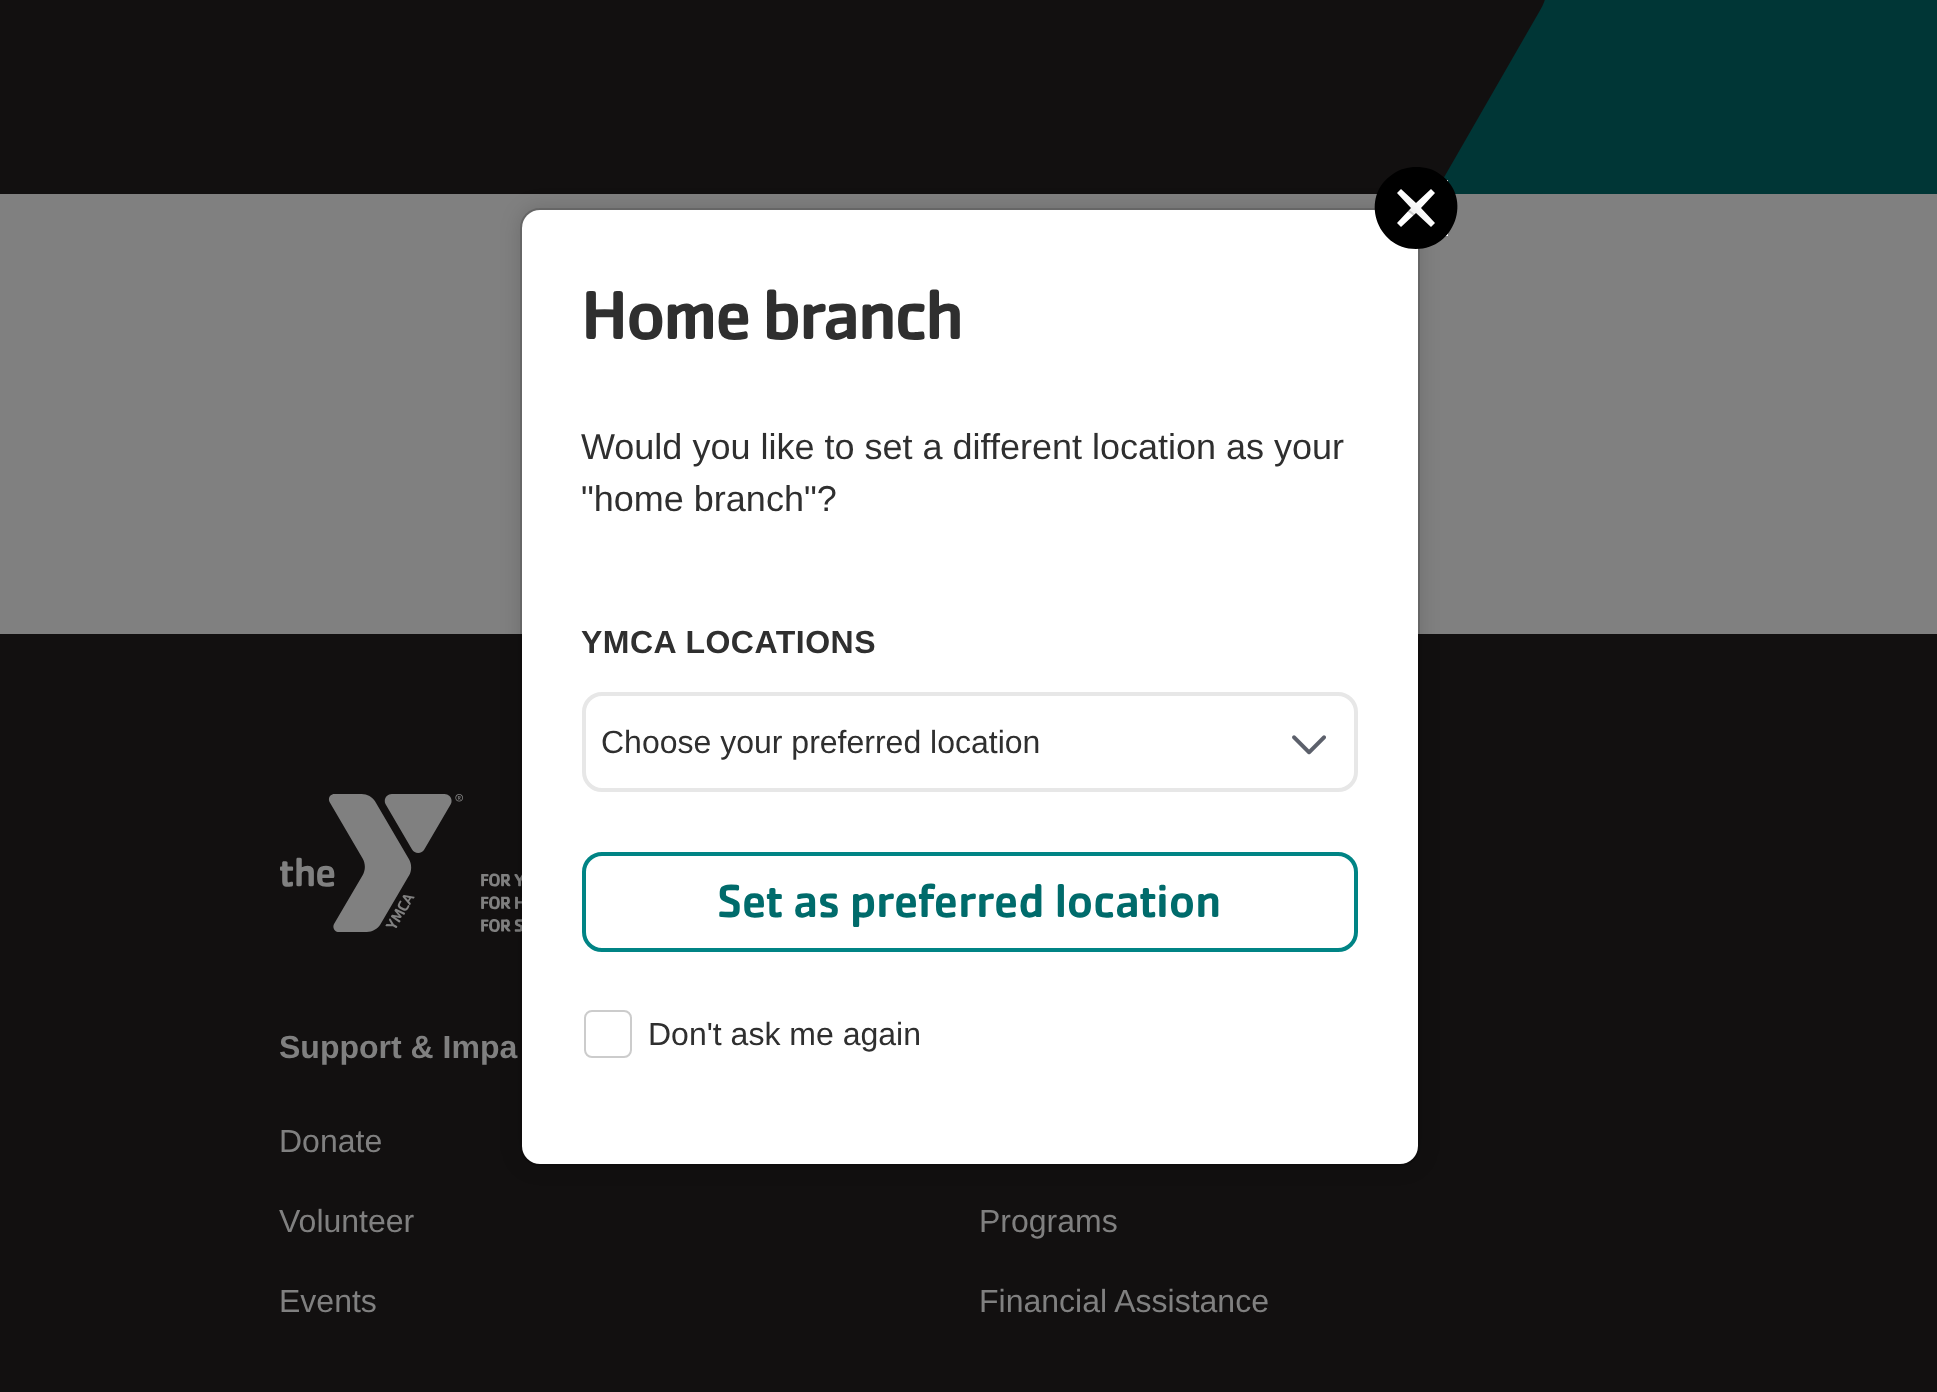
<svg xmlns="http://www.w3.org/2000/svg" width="1937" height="1392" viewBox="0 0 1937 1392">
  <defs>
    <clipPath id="clip1"><path d="M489 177H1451V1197H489ZM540 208H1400C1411 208 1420 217 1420 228V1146C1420 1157 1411 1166 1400 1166H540C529 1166 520 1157 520 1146V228C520 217 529 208 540 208Z" clip-rule="evenodd"/></clipPath>
  </defs>
  <rect width="100%" height="100%" fill="#808080"/>
  <path d="M1540 0h397v194H1540z" fill="#003636"/>
  <image x="1356" y="0" width="189" height="194" href="img/2.png"/>
  <path d="M1397 180h51v56H1397z" fill="#fff"/>
  <path d="M0 0h1356v194H0z" fill="#121010"/>
  <path d="M0 634h1937v758H0z" fill="#121010"/>
  <image x="280" y="794" width="242" height="138" href="img/3.png"/>
  <g clip-path="url(#clip1)">
    <rect x="520" y="208" width="900" height="958" rx="20" fill="#00000026" filter="blur(10px)"/>
  </g>
  <rect x="522" y="210" width="896" height="954" rx="18" fill="#fff"/>
  <rect x="521" y="209" width="898" height="956" rx="19" fill="none" stroke="#00000033" stroke-width="2"/>
  <path d="M1401 227L1416 213L1431 227L1435 223L1421 208L1435 193L1431 189L1416 203L1401 189L1397 193L1411 208L1397 223ZM1416 249C1376 249 1359 196 1393 174C1400 169 1408 167 1416 167C1425 167 1434 169 1441 175C1473 198 1455 249 1416 249Z" fill="#000"/>
  <image x="1292" y="735" width="34" height="20" href="img/1.png"/>
  <rect x="584" y="694" width="772" height="96" rx="18" fill="none" stroke="#e7e7e7" stroke-width="4"/>
  <rect x="584" y="854" width="772" height="96" rx="18" fill="none" stroke="#008485" stroke-width="4"/>
  <rect x="585" y="1011" width="46" height="46" rx="7" fill="none" stroke="#ccc" stroke-width="2"/>
  <text x="581" y="339" font-family="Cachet" font-size="72" font-weight="500" letter-spacing="-2.25" fill="#2f2f2f">Home branch</text>
  <g font-family="Liberation Sans" font-size="36" fill="#2f2f2f">
    <text x="581" y="459">Would you like to set a different location as your</text>
    <text x="581" y="511">"home branch"?</text>
  </g>
  <text x="581" y="653" font-family="Liberation Sans" font-size="32" font-weight="bold" letter-spacing="0.5" fill="#2f2f2f">YMCA LOCATIONS</text>
  <text x="601" y="753" font-family="Liberation Sans" font-size="32" fill="#2f2f2f">Choose your preferred location</text>
  <text x="717" y="917" font-family="Cachet" font-size="48" font-weight="500" fill="#006b6b">Set as preferred location</text>
  <text x="648" y="1045" font-family="Liberation Sans" font-size="32" fill="#2f2f2f">Don't ask me again</text>
  <text x="279" y="1058" font-family="Liberation Sans" font-size="32" font-weight="bold" fill="#808080">Support &amp; Impa</text>
  <g font-family="Liberation Sans" font-size="32" fill="#808080">
    <text x="279" y="1152">Donate</text>
    <text x="279" y="1232">Volunteer</text>
    <text x="279" y="1312">Events</text>
    <text x="979" y="1232">Programs</text>
    <text x="979" y="1312">Financial Assistance</text>
  </g>
</svg>
